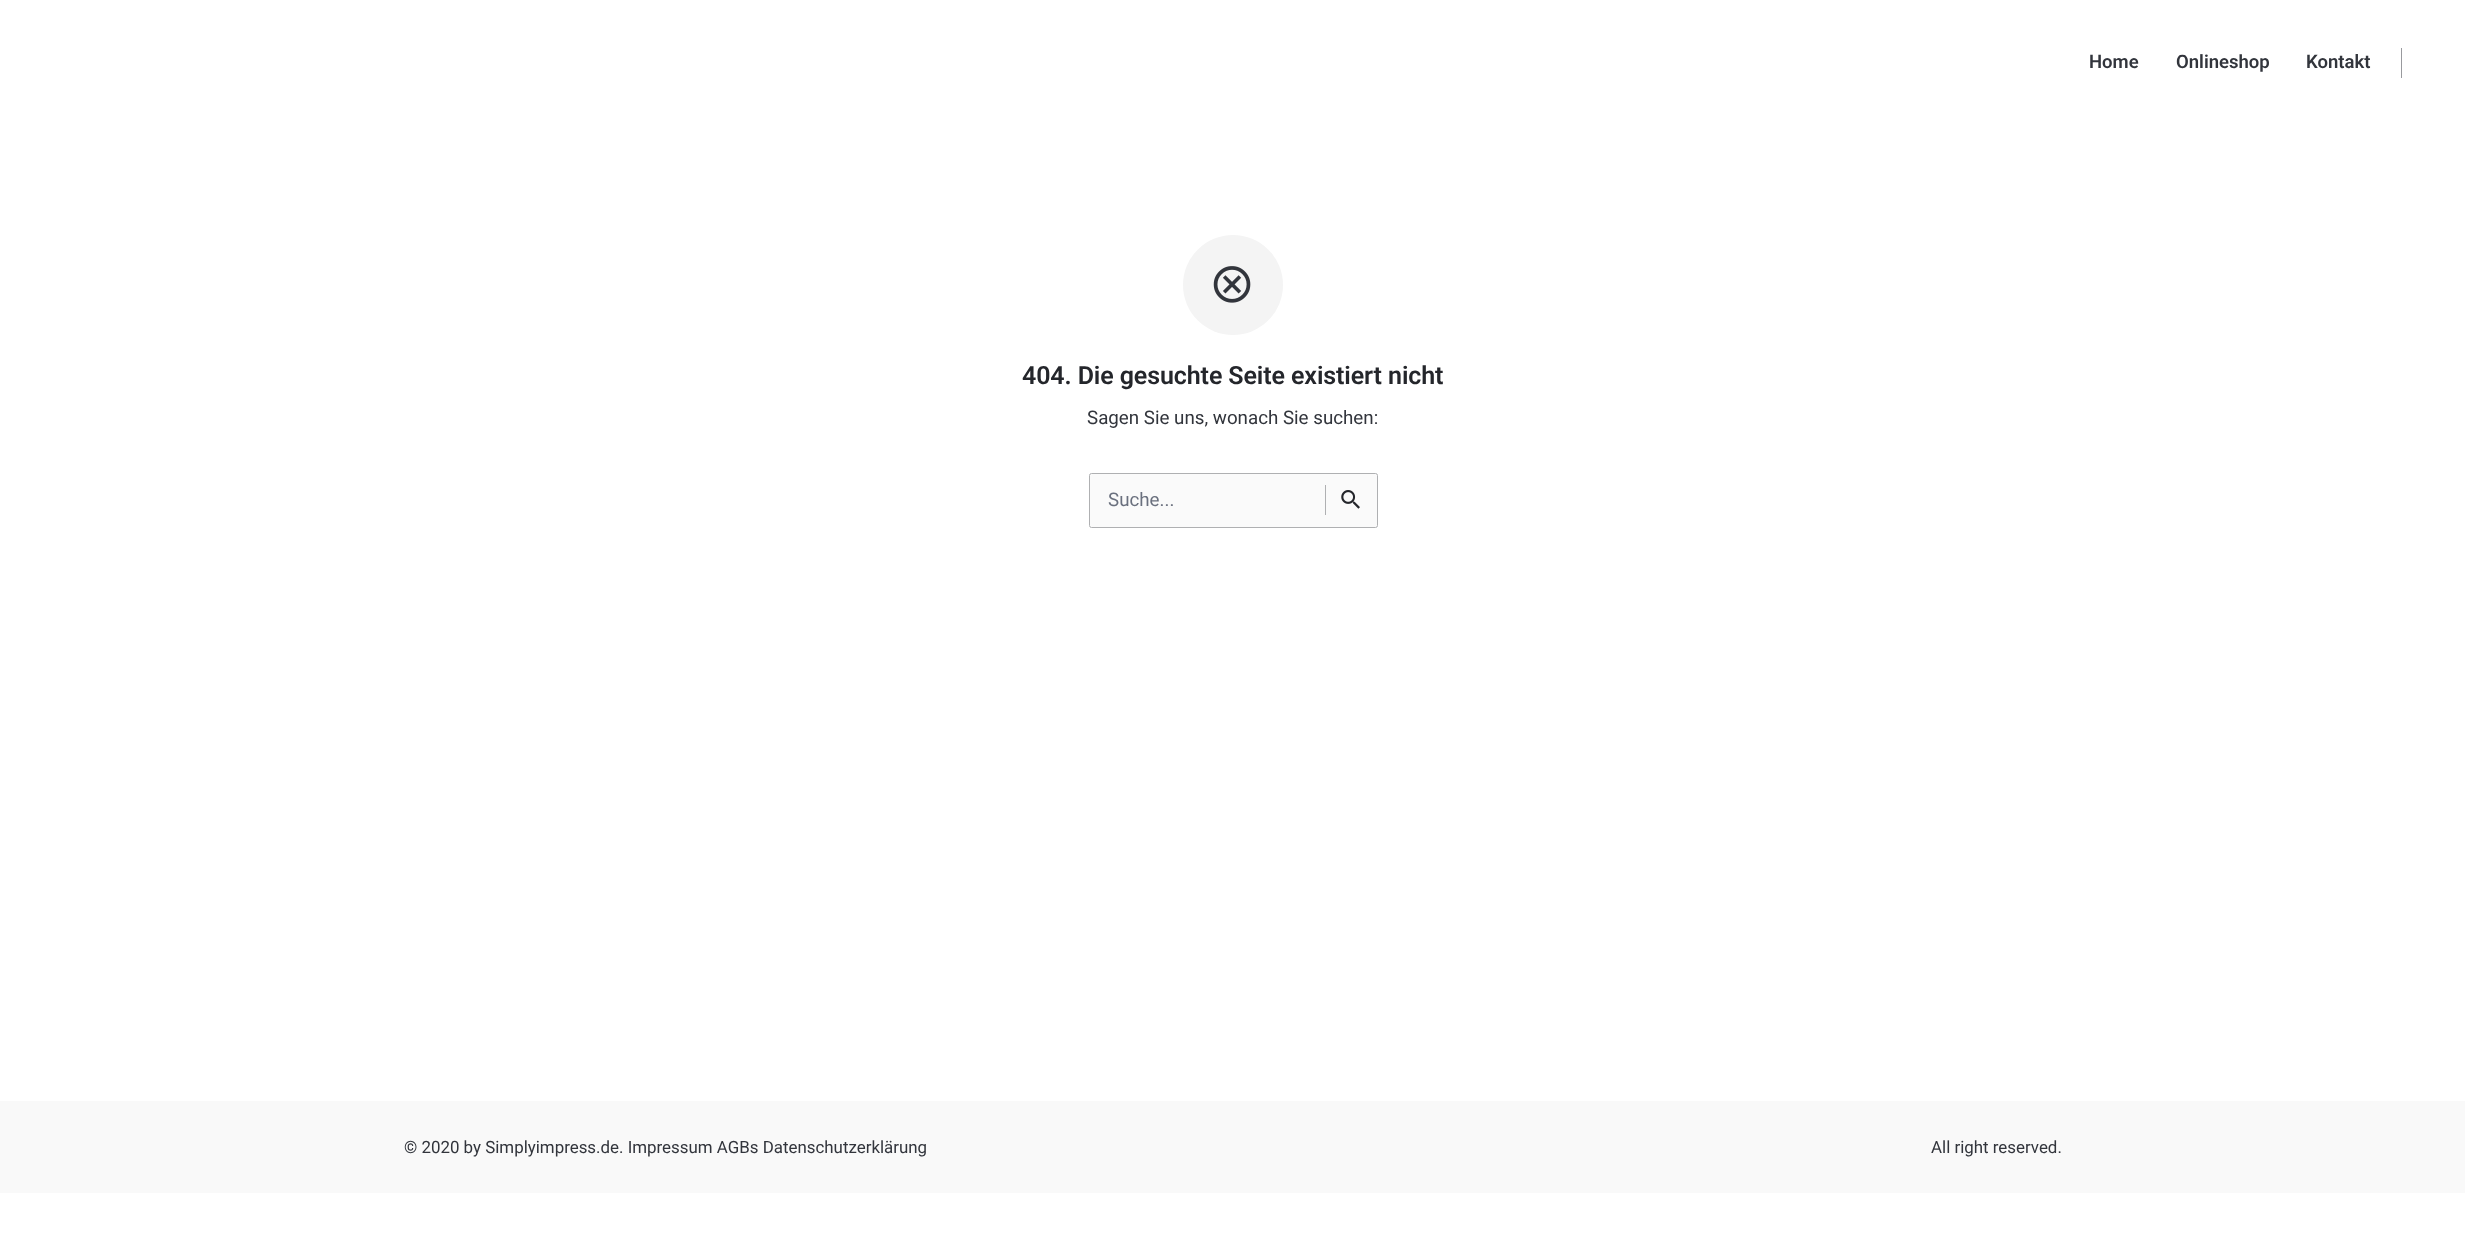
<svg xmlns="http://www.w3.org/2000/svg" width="2465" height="1234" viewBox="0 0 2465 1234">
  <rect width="100%" height="100%" fill="#fff"/>
  <path d="M2401 48h1v30H2401z" fill="#999a9e"/>
  <circle cx="1233" cy="285" r="50" fill="#f4f4f4"/>
  <image x="1213" y="266" width="38" height="37" href="img/1.png"/>
  <rect x="1089.5" y="473.5" width="288" height="54" rx="2" fill="#fafafa" stroke="#afb0b2"/>
  <path d="M1325 485h1v30H1325z" fill="#afb0b2"/>
  <image x="1341" y="490" width="19" height="19" href="img/2.png"/>
  <path d="M0 1101h2465v92H0z" fill="#f9f9f9"/>
  <g font-family="Roboto" font-size="18.5" font-weight="600" fill="#32353c">
    <text x="2089" y="68">Home</text>
    <text x="2176" y="68">Onlineshop</text>
    <text x="2306" y="68">Kontakt</text>
  </g>
  <text x="1022" y="384" font-family="Roboto" font-size="25" font-weight="600" letter-spacing="-0.1" fill="#24262b">404. Die gesuchte Seite existiert nicht</text>
  <text x="1087" y="424" font-family="Roboto" font-size="18.75" fill="#32353c">Sagen Sie uns, wonach Sie suchen:</text>
  <text x="1108" y="506" font-family="Roboto" font-size="18.75" fill="#6a707e">Suche...</text>
  <g font-family="Roboto" font-size="16.9" fill="#32353c">
    <text x="404" y="1153">© 2020 by Simplyimpress.de</text>
    <text x="619" y="1153">. Impressum AGBs Datenschutzerklärung</text>
    <text x="1931" y="1153">All right reserved.</text>
  </g>
</svg>
